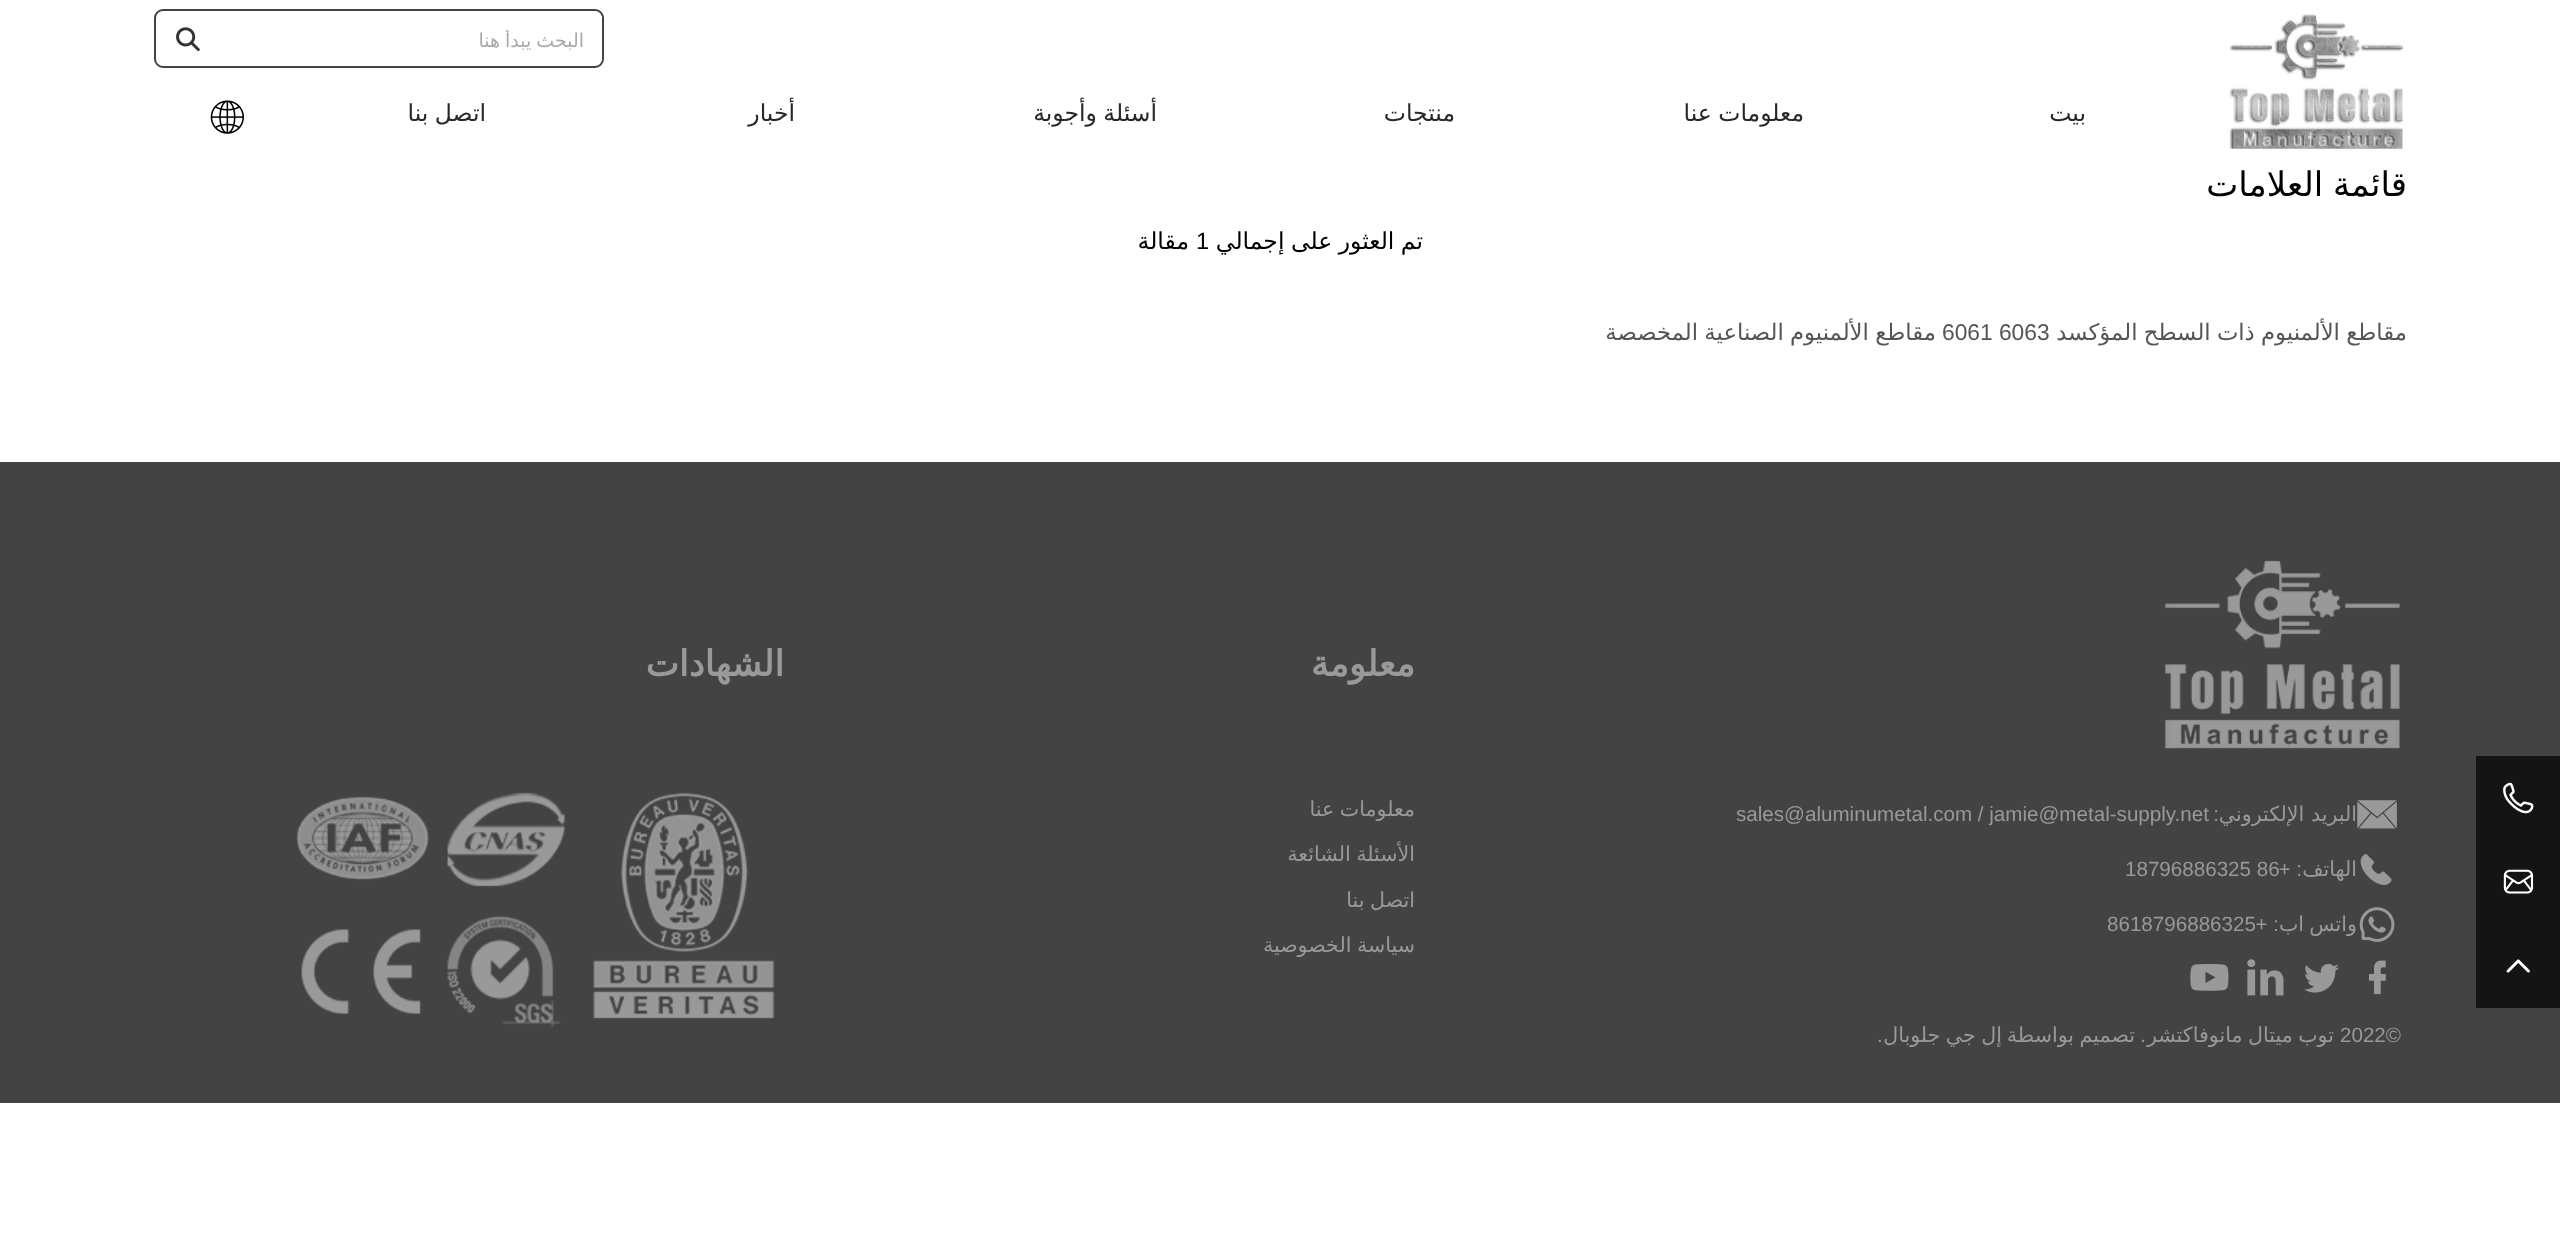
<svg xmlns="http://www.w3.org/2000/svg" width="2560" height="1259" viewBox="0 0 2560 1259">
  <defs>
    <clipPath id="clip1"><path d="M222 30h363v23H222z"/></clipPath>
    <clipPath id="clip2"><path d="M154 165h2252v297H154z"/></clipPath>
  </defs>
  <rect width="100%" height="100%" fill="#fff"/>
  <image x="2229" y="13" width="174" height="136" href="img/1.png"/>
  <rect x="155" y="10" width="448" height="57" rx="8" fill="none" stroke="#434343" stroke-width="2"/>
  <path d="M601 16h1v45H601z" fill="#fff"/>
  <image x="176" y="27" width="24" height="24" href="img/2.png"/>
  <image x="210" y="100" width="34" height="34" href="img/3.png"/>
  <path d="M0 462h2560v641H0z" fill="#434343"/>
  <path d="M2476 756h84v252H2476z" fill="#141414"/>
  <image x="2503" y="782" width="31" height="32" href="img/4.png"/>
  <image x="2503" y="869" width="31" height="25" href="img/5.png"/>
  <image x="2506" y="959" width="24" height="14" href="img/6.png"/>
  <image x="2165" y="560" width="235" height="189" href="img/7.png"/>
  <image x="2357" y="800" width="40" height="29" href="img/8.png"/>
  <image x="2360" y="854" width="32" height="31" href="img/9.png"/>
  <image x="2359" y="907" width="36" height="35" href="img/10.png"/>
  <image x="2369" y="960" width="17" height="35" href="img/11.png"/>
  <image x="2304" y="963" width="35" height="30" href="img/12.png"/>
  <image x="2247" y="959" width="37" height="37" href="img/13.png"/>
  <image x="2190" y="963" width="39" height="28" href="img/14.png"/>
  <image x="296" y="792" width="479" height="235" href="img/15.png"/>
  <g clip-path="url(#clip1)">
    <text x="584" y="47" word-spacing="-1" font-family="DejaVu Sans" font-size="19" direction="rtl" fill="#aaa">البحث يبدأ هنا</text>
  </g>
  <g font-family="DejaVu Sans" font-size="23.5" direction="rtl" fill="#282828">
    <text x="2086" y="121">بيت</text>
    <text x="1804" y="121" word-spacing="-1">معلومات عنا</text>
    <text x="1455" y="121">منتجات</text>
    <text x="1157" y="121" word-spacing="-1">أسئلة وأجوبة</text>
    <text x="795" y="121">أخبار</text>
    <text x="486" y="121" word-spacing="-1">اتصل بنا</text>
  </g>
  <text x="2407" y="196" word-spacing="-1" font-family="DejaVu Sans" font-size="34" direction="rtl" fill="#000">قائمة العلامات</text>
  <text x="1423" y="249" word-spacing="-1" font-family="DejaVu Sans" font-size="23.5" direction="rtl" fill="#000">تم العثور على إجمالي</text>
  <text x="1196" y="249" font-family="Liberation Sans" font-size="23.5" fill="#000">1</text>
  <text x="1189" y="249" font-family="DejaVu Sans" font-size="23.5" direction="rtl" fill="#000">مقالة</text>
  <g clip-path="url(#clip2)">
    <text x="2407" y="340" word-spacing="-1" font-family="DejaVu Sans" font-size="22.75" direction="rtl" fill="#555">مقاطع الألمنيوم ذات السطح المؤكسد</text>
  </g>
  <text x="1942" y="340" font-family="Liberation Sans" font-size="22.75" fill="#555">6061 6063</text>
  <text x="1936" y="340" word-spacing="-1" font-family="DejaVu Sans" font-size="22.75" direction="rtl" fill="#555">مقاطع الألمنيوم الصناعية المخصصة</text>
  <text x="2357" y="821" font-family="DejaVu Sans" font-size="20.6" direction="rtl" fill="#999">البريد الإلكتروني</text>
  <text x="2219" y="821" font-family="Liberation Sans" font-size="20.6" direction="rtl" fill="#999">:</text>
  <text x="1736" y="821" font-family="Liberation Sans" font-size="20.6" fill="#999">sales@aluminumetal.com / jamie@metal-supply.net</text>
  <text x="2357" y="876" font-family="DejaVu Sans" font-size="20.6" direction="rtl" fill="#999">الهاتف</text>
  <text x="2302" y="876" font-family="Liberation Sans" font-size="20.6" direction="rtl" fill="#999">: +</text>
  <text x="2125" y="876" font-family="Liberation Sans" font-size="20.6" fill="#999">18796886325 86</text>
  <g font-family="DejaVu Sans" font-size="20.6" direction="rtl" fill="#999">
    <text x="2357" y="931">واتس</text>
    <text x="2304" y="931">اب</text>
  </g>
  <text x="2279" y="931" font-family="Liberation Sans" font-size="20.6" direction="rtl" fill="#999">: +</text>
  <g font-family="Liberation Sans" font-size="20.6" fill="#999">
    <text x="2107" y="931">8618796886325</text>
    <text x="2340" y="1042">2022©</text>
  </g>
  <text x="2334" y="1042" word-spacing="-1" font-family="DejaVu Sans" font-size="20.6" direction="rtl" fill="#999">توب ميتال مانوفاكتشر</text>
  <text x="2146" y="1042" font-family="Liberation Sans" font-size="20.6" direction="rtl" fill="#999">.</text>
  <g font-family="DejaVu Sans" font-size="20.6" direction="rtl" fill="#999">
    <text x="2135" y="1042" word-spacing="-1">تصميم بواسطة</text>
    <text x="2002" y="1042" word-spacing="-1">إل جي جلوبال</text>
  </g>
  <text x="1877" y="1042" font-family="Liberation Sans" font-size="20.6" fill="#999">.</text>
  <text x="1415" y="676" font-family="DejaVu Sans" font-size="35.5" font-weight="bold" direction="rtl" fill="#999">معلومة</text>
  <g font-family="DejaVu Sans" font-size="20.6" direction="rtl" fill="#999">
    <text x="1415" y="816" word-spacing="-1">معلومات عنا</text>
    <text x="1415" y="861" word-spacing="-1">الأسئلة الشائعة</text>
    <text x="1415" y="907" word-spacing="-1">اتصل بنا</text>
    <text x="1415" y="952" word-spacing="-1">سياسة الخصوصية</text>
  </g>
  <text x="784" y="676" font-family="DejaVu Sans" font-size="35.5" font-weight="bold" direction="rtl" fill="#999">الشهادات</text>
</svg>
